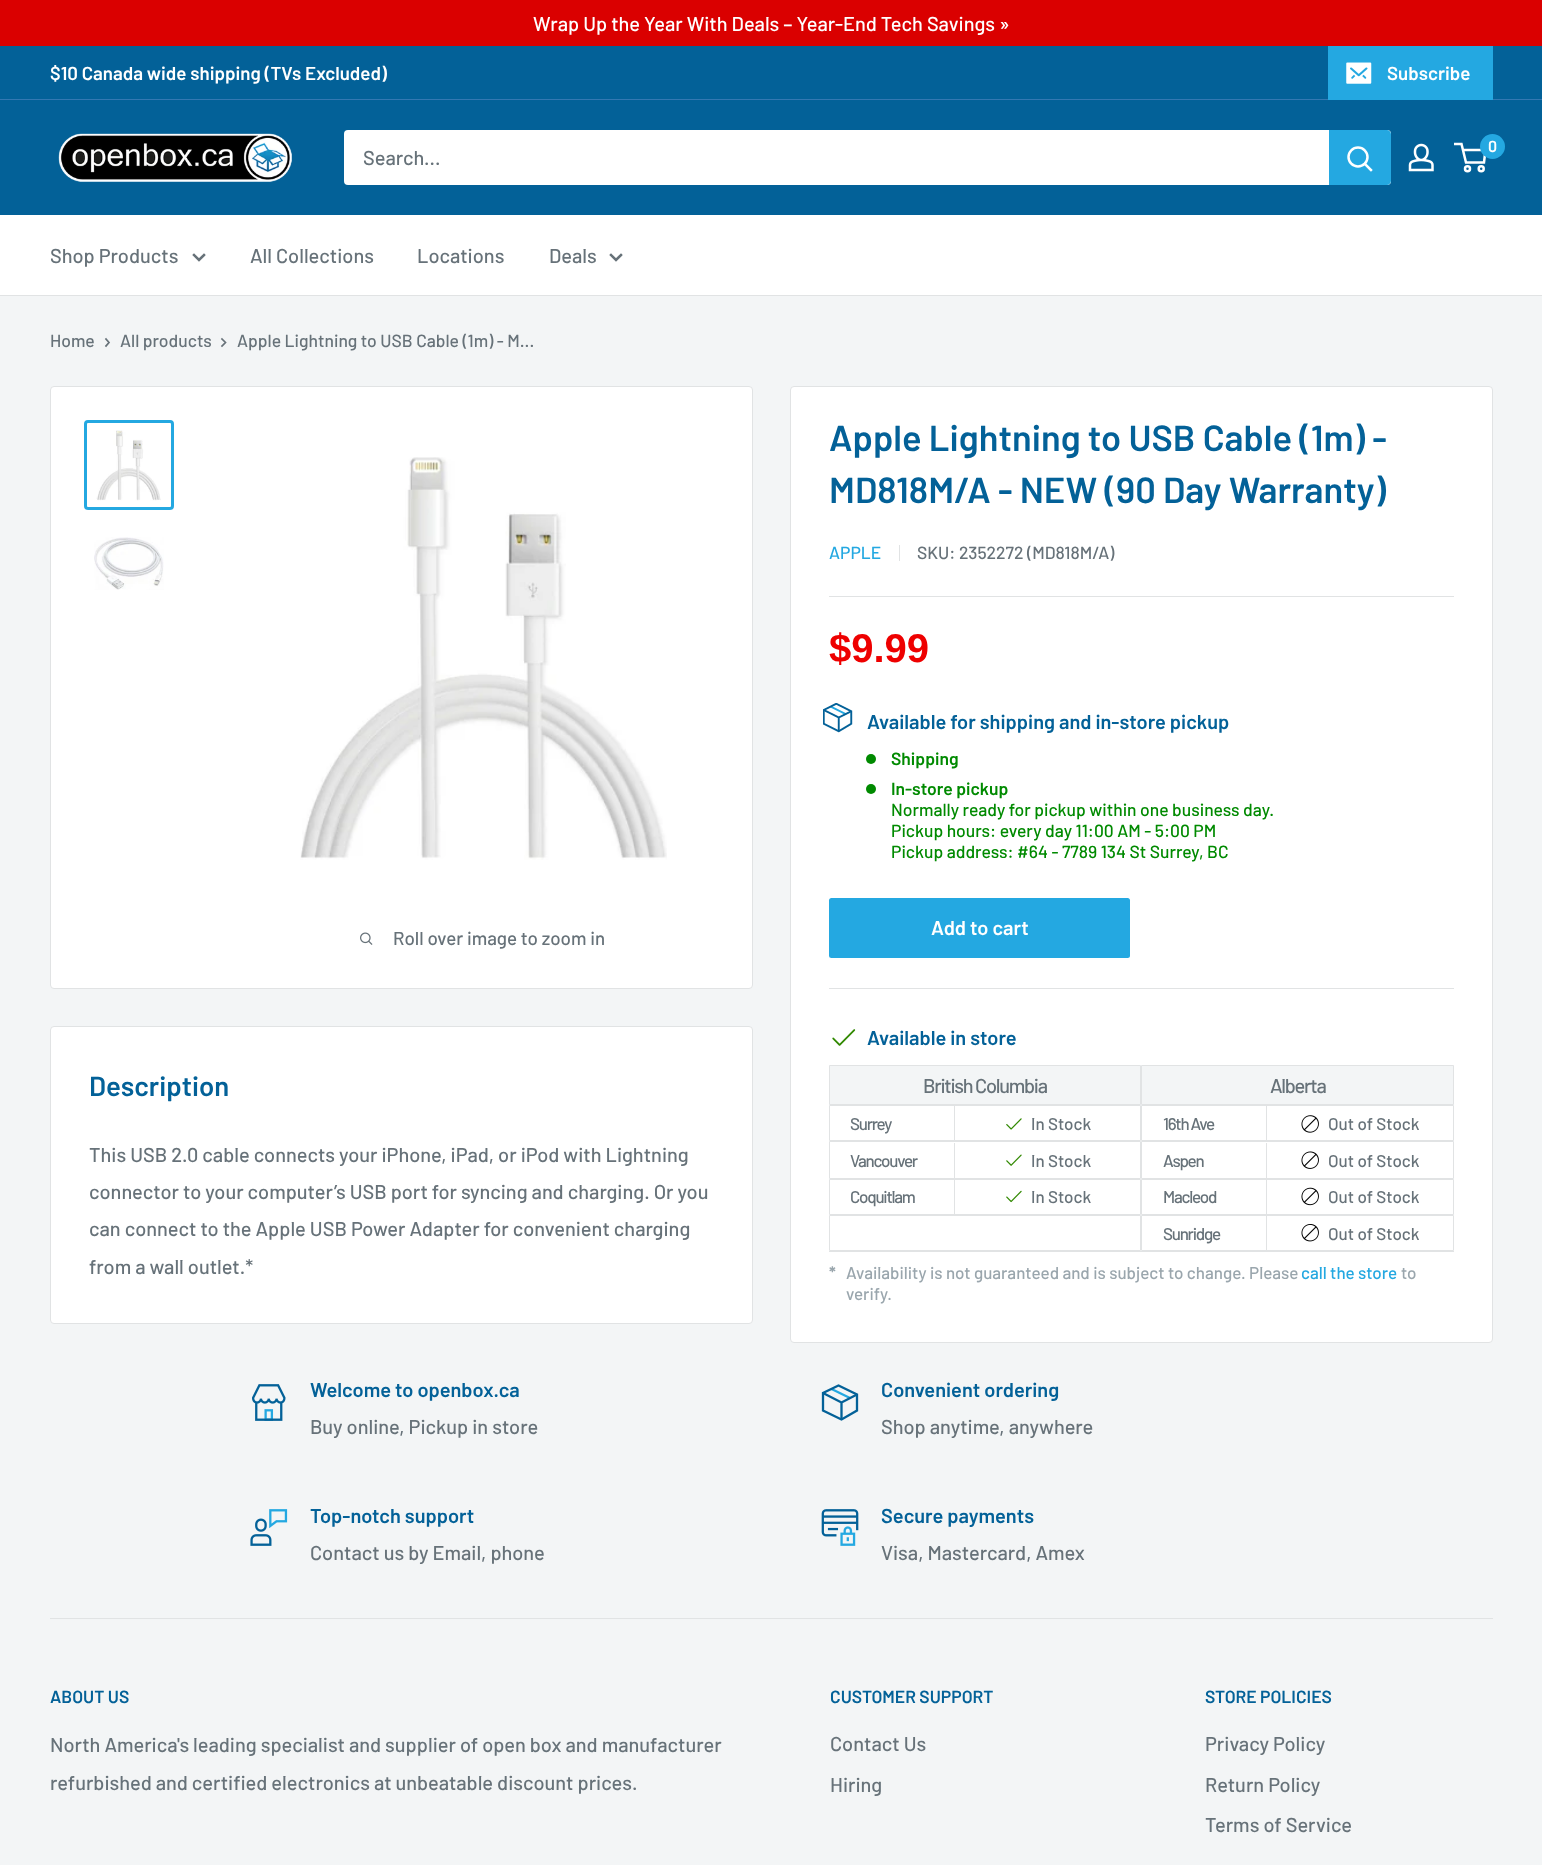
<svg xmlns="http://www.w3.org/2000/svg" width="1542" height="1865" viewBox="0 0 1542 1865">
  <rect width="100%" height="100%" fill="#f3f5f6"/>
  <path d="M0 0h1542v46H0z" fill="#da0000"/>
  <path d="M0 46h1542v53H0z" fill="#036198"/>
  <path d="M0 99h1542v1H0z" fill="#3378b2"/>
  <path d="M1328 99V100H1493V48H1492V99Z" fill="#24a8e1"/>
  <path d="M1328 46h165v53H1328z" fill="#24a8e1"/>
  <image x="1346" y="62" width="26" height="22" href="img/1.png"/>
  <path d="M0 100h1542v115H0z" fill="#036198"/>
  <image x="58" y="133" width="234" height="49" href="img/2.png"/>
  <image x="1408" y="143" width="26" height="29" href="img/3.png"/>
  <circle cx="1467.5" cy="168.8" r="2.5" fill="none" stroke="#fff" stroke-width="2.5"/>
  <circle cx="1481.2" cy="168.8" r="2.5" fill="none" stroke="#fff" stroke-width="2.5"/>
  <path d="M1463 150H1485.5L1484 162.5H1466L1461.5 144H1454" fill="none" stroke="#fff" stroke-width="2.5"/>
  <circle cx="1492.5" cy="146.5" r="12.5" fill="#24a8e1"/>
  <rect x="344" y="130" width="1047" height="55" rx="4" fill="#fff"/>
  <path d="M1329 130H1387C1389 130 1391 132 1391 134V181C1391 183 1389 185 1387 185H1329Z" fill="#24a8e1"/>
  <path d="M1371 170L1365 164" fill="none" stroke="#fff" stroke-width="2.5" stroke-linecap="square"/>
  <circle cx="1358" cy="157" r="9.5" fill="none" stroke="#fff" stroke-width="2.5"/>
  <path d="M0 215h1542v80H0z" fill="#fff"/>
  <path d="M0 295h1542v1H0z" fill="#e1e3e4"/>
  <path d="M204 255L199 260L194 255" fill="none" stroke="#677279" stroke-width="2.5" stroke-linecap="square"/>
  <path d="M621 255L616 260L611 255" fill="none" stroke="#677279" stroke-width="2.5" stroke-linecap="square"/>
  <path d="M106 339L109 342.5L106 346" fill="none" stroke="#677279" stroke-width="1.7" stroke-linecap="square"/>
  <path d="M222 339L225.5 342.5L222 346" fill="none" stroke="#677279" stroke-width="1.7" stroke-linecap="square"/>
  <rect x="50.5" y="386.5" width="702" height="602" rx="3.5" fill="#fff" stroke="#e1e3e4"/>
  <rect x="85.5" y="421.5" width="87" height="87" rx="2.5" fill="none" stroke="#24a8e1" stroke-width="3"/>
  <image x="96" y="430" width="65" height="71" href="img/4.png"/>
  <image x="94" y="537" width="70" height="53" href="img/5.png"/>
  <image x="300" y="457" width="367" height="403" href="img/6.png"/>
  <image x="360" y="932" width="13" height="13" href="img/7.png"/>
  <rect x="790.5" y="386.5" width="702" height="956" rx="3.5" fill="#fff" stroke="#e1e3e4"/>
  <path d="M899 545h1v16H899z" fill="#e1e3e4"/>
  <path d="M829 596h625v1H829z" fill="#e1e3e4"/>
  <image x="823" y="703" width="30" height="30" href="img/8.png"/>
  <circle cx="871" cy="759" r="5" fill="#008a00"/>
  <circle cx="871" cy="789" r="5" fill="#008a00"/>
  <rect x="829" y="898" width="301" height="60" rx="2.5" fill="#24a8e1"/>
  <path d="M829 988h625v1H829z" fill="#e1e3e4"/>
  <image x="832" y="1029" width="24" height="17" href="img/9.png"/>
  <path d="M829 1251h625v1H829z" fill="#e1e3e4"/>
  <path d="M829.5 1065.5h311v39H829.5z" fill="#f3f5f6" stroke="#e1e3e4"/>
  <path d="M829.5 1105.5h311v35H829.5z" fill="none" stroke="#e1e3e4"/>
  <path d="M954 1106h1v34H954z" fill="#e1e3e4"/>
  <image x="1006" y="1118" width="16" height="12" href="img/10.png"/>
  <path d="M829.5 1141.5h311v37H829.5z" fill="none" stroke="#e1e3e4"/>
  <path d="M954 1143h1v35H954z" fill="#e1e3e4"/>
  <image x="1006" y="1154" width="16" height="12" href="img/11.png"/>
  <path d="M829.5 1179.5h311v35H829.5z" fill="none" stroke="#e1e3e4"/>
  <path d="M954 1180h1v34H954z" fill="#e1e3e4"/>
  <image x="1006" y="1190" width="16" height="13" href="img/12.png"/>
  <path d="M829.5 1215.5h311v35H829.5z" fill="none" stroke="#e1e3e4"/>
  <path d="M1141.5 1065.5h312v39H1141.5z" fill="#f3f5f6" stroke="#e1e3e4"/>
  <path d="M1141.5 1105.5h312v35H1141.5z" fill="none" stroke="#e1e3e4"/>
  <path d="M1266 1106h1v34H1266z" fill="#e1e3e4"/>
  <image x="1301" y="1115" width="18" height="18" href="img/13.png"/>
  <path d="M1141.5 1141.5h312v37H1141.5z" fill="none" stroke="#e1e3e4"/>
  <path d="M1266 1143h1v35H1266z" fill="#e1e3e4"/>
  <image x="1301" y="1151" width="18" height="18" href="img/14.png"/>
  <path d="M1141.5 1179.5h312v35H1141.5z" fill="none" stroke="#e1e3e4"/>
  <path d="M1266 1180h1v34H1266z" fill="#e1e3e4"/>
  <image x="1301" y="1187" width="18" height="19" href="img/15.png"/>
  <path d="M1141.5 1215.5h312v35H1141.5z" fill="none" stroke="#e1e3e4"/>
  <path d="M1266 1216h1v34H1266z" fill="#e1e3e4"/>
  <image x="1301" y="1224" width="18" height="18" href="img/16.png"/>
  <rect x="50.5" y="1026.5" width="702" height="297" rx="3.5" fill="#fff" stroke="#e1e3e4"/>
  <image x="252" y="1384" width="34" height="37" href="img/17.png"/>
  <path d="M831.5 1389L850 1398" fill="none" stroke="#24a8e1" stroke-width="2.3"/>
  <path d="M857 1394.5L841.5 1402.5L823 1393M841.5 1402.5V1419.5" fill="none" stroke="#036198" stroke-width="2.3"/>
  <path d="M857 1394.5V1410.5L841.5 1419.5L823 1410.5V1393L838.5 1385.5Z" fill="none" stroke="#036198" stroke-width="2.3" stroke-linecap="square"/>
  <image x="250" y="1509" width="38" height="37" href="img/18.png"/>
  <image x="821" y="1509" width="38" height="37" href="img/19.png"/>
  <path d="M50 1618h1443v1H50z" fill="#e1e3e4"/>
  <text x="533" y="31" font-family="Barlow" font-size="20" font-weight="500" fill="#fff">Wrap Up the Year With Deals – Year-End Tech Savings »</text>
  <g font-family="Barlow" font-size="18.75" font-weight="600" fill="#fff">
    <text x="50" y="80">$10 Canada wide shipping (TVs Excluded)</text>
    <text x="1387" y="80">Subscribe</text>
  </g>
  <text x="1488" y="152" font-family="Barlow" font-size="16" font-weight="600" fill="#fff">0</text>
  <g font-family="Barlow" font-size="20" font-weight="500" fill="#677279">
    <text x="363" y="165">Search...</text>
    <text x="50" y="263">Shop Products</text>
    <text x="250" y="263">All Collections</text>
    <text x="417" y="263">Locations</text>
    <text x="549" y="263">Deals</text>
  </g>
  <g font-family="Barlow" font-size="17.5" font-weight="500" fill="#677279">
    <text x="50" y="347">Home</text>
    <text x="120" y="347">All products</text>
    <text x="237" y="347">Apple Lightning to USB Cable (1m) - M...</text>
  </g>
  <text x="393" y="945" font-family="Barlow" font-size="18.75" font-weight="500" fill="#677279">Roll over image to zoom in</text>
  <g font-family="Barlow" font-size="36.25" font-weight="600" fill="#036198">
    <text x="829" y="451">Apple Lightning to USB Cable (1m) -</text>
    <text x="829" y="503">MD818M/A - NEW (90 Day Warranty)</text>
  </g>
  <text x="829" y="559" font-family="Barlow" font-size="17.5" font-weight="500" fill="#24a8e1">APPLE</text>
  <text x="917" y="559" font-family="Barlow" font-size="17.5" font-weight="500" fill="#677279">SKU: 2352272 (MD818M/A)</text>
  <text x="829" y="662" font-family="Liberation Sans" font-size="40" font-weight="bold" fill="#e00">$9.99</text>
  <text x="867" y="729" font-family="Barlow" font-size="20" font-weight="600" fill="#036198">Available for shipping and in-store pickup</text>
  <g font-family="Barlow" font-size="17.5" font-weight="600" fill="#008a00">
    <text x="891" y="765">Shipping</text>
    <text x="891" y="795">In-store pickup</text>
  </g>
  <g font-family="Barlow" font-size="17.5" font-weight="500" fill="#008a00">
    <text x="891" y="816">Normally ready for pickup within one business day.</text>
    <text x="891" y="837">Pickup hours: every day 11:00 AM - 5:00 PM</text>
    <text x="891" y="858">Pickup address: #64 - 7789 134 St Surrey, BC</text>
  </g>
  <text x="931" y="935" font-family="Barlow" font-size="20" font-weight="600" fill="#fff">Add to cart</text>
  <text x="867" y="1045" font-family="Barlow" font-size="20" font-weight="600" fill="#036198">Available in store</text>
  <text x="923" y="1093" font-family="Barlow" font-size="20" font-weight="500" letter-spacing="-1.25" fill="#677279">British Columbia</text>
  <text x="850" y="1130" font-family="Barlow" font-size="17" font-weight="500" letter-spacing="-1.25" fill="#677279">Surrey</text>
  <text x="1031" y="1130" font-family="Barlow" font-size="17" font-weight="500" fill="#677279">In Stock</text>
  <text x="850" y="1167" font-family="Barlow" font-size="17" font-weight="500" letter-spacing="-1.25" fill="#677279">Vancouver</text>
  <text x="1031" y="1167" font-family="Barlow" font-size="17" font-weight="500" fill="#677279">In Stock</text>
  <text x="850" y="1203" font-family="Barlow" font-size="17" font-weight="500" letter-spacing="-1.25" fill="#677279">Coquitlam</text>
  <text x="1031" y="1203" font-family="Barlow" font-size="17" font-weight="500" fill="#677279">In Stock</text>
  <text x="1270" y="1093" font-family="Barlow" font-size="20" font-weight="500" letter-spacing="-1.25" fill="#677279">Alberta</text>
  <text x="1163" y="1130" font-family="Barlow" font-size="17" font-weight="500" letter-spacing="-1.25" fill="#677279">16th Ave</text>
  <text x="1328" y="1130" font-family="Barlow" font-size="17" font-weight="500" fill="#677279">Out of Stock</text>
  <text x="1163" y="1167" font-family="Barlow" font-size="17" font-weight="500" letter-spacing="-1.25" fill="#677279">Aspen</text>
  <text x="1328" y="1167" font-family="Barlow" font-size="17" font-weight="500" fill="#677279">Out of Stock</text>
  <text x="1163" y="1203" font-family="Barlow" font-size="17" font-weight="500" letter-spacing="-1.25" fill="#677279">Macleod</text>
  <text x="1328" y="1203" font-family="Barlow" font-size="17" font-weight="500" fill="#677279">Out of Stock</text>
  <text x="1163" y="1240" font-family="Barlow" font-size="17" font-weight="500" letter-spacing="-1.25" fill="#677279">Sunridge</text>
  <text x="1328" y="1240" font-family="Barlow" font-size="17" font-weight="500" fill="#677279">Out of Stock</text>
  <text x="829" y="1279" font-family="Barlow" font-size="17" font-weight="bold" fill="#9aa6ad">*</text>
  <text x="846" y="1279" font-family="Barlow" font-size="17" font-weight="500" fill="#9aa6ad">Availability is not guaranteed and is subject to change. Please</text>
  <text x="1301" y="1279" font-family="Barlow" font-size="17" font-weight="500" fill="#24a8e1">call the store</text>
  <g font-family="Barlow" font-size="17" font-weight="500" fill="#9aa6ad">
    <text x="1401" y="1279">to</text>
    <text x="846" y="1300">verify.</text>
  </g>
  <text x="89" y="1096" font-family="Barlow" font-size="27.5" font-weight="600" fill="#036198">Description</text>
  <g font-family="Barlow" font-size="20" font-weight="500" fill="#677279">
    <text x="89" y="1162">This USB 2.0 cable connects your iPhone, iPad, or iPod with Lightning</text>
    <text x="89" y="1199">connector to your computer’s USB port for syncing and charging. Or you</text>
    <text x="89" y="1236">can connect to the Apple USB Power Adapter for convenient charging</text>
    <text x="89" y="1274">from a wall outlet.*</text>
  </g>
  <text x="310" y="1397" font-family="Barlow" font-size="20" font-weight="600" fill="#036198">Welcome to openbox.ca</text>
  <text x="310" y="1434" font-family="Barlow" font-size="20" font-weight="500" fill="#677279">Buy online, Pickup in store</text>
  <text x="881" y="1397" font-family="Barlow" font-size="20" font-weight="600" fill="#036198">Convenient ordering</text>
  <text x="881" y="1434" font-family="Barlow" font-size="20" font-weight="500" fill="#677279">Shop anytime, anywhere</text>
  <text x="310" y="1523" font-family="Barlow" font-size="20" font-weight="600" fill="#036198">Top-notch support</text>
  <text x="310" y="1560" font-family="Barlow" font-size="20" font-weight="500" fill="#677279">Contact us by Email, phone</text>
  <text x="881" y="1523" font-family="Barlow" font-size="20" font-weight="600" fill="#036198">Secure payments</text>
  <text x="881" y="1560" font-family="Barlow" font-size="20" font-weight="500" fill="#677279">Visa, Mastercard, Amex</text>
  <text x="50" y="1703" font-family="Barlow" font-size="17.5" font-weight="600" fill="#036198">ABOUT US</text>
  <g font-family="Barlow" font-size="20" font-weight="500" fill="#677279">
    <text x="50" y="1752">North America's leading specialist and supplier of open box and manufacturer</text>
    <text x="50" y="1790">refurbished and certified electronics at unbeatable discount prices.</text>
  </g>
  <text x="830" y="1703" font-family="Barlow" font-size="17.5" font-weight="600" fill="#036198">CUSTOMER SUPPORT</text>
  <g font-family="Barlow" font-size="20" font-weight="500" fill="#677279">
    <text x="830" y="1751">Contact Us</text>
    <text x="830" y="1792">Hiring</text>
  </g>
  <text x="1205" y="1703" font-family="Barlow" font-size="17.5" font-weight="600" fill="#036198">STORE POLICIES</text>
  <g font-family="Barlow" font-size="20" font-weight="500" fill="#677279">
    <text x="1205" y="1751">Privacy Policy</text>
    <text x="1205" y="1792">Return Policy</text>
    <text x="1205" y="1832">Terms of Service</text>
  </g>
</svg>
